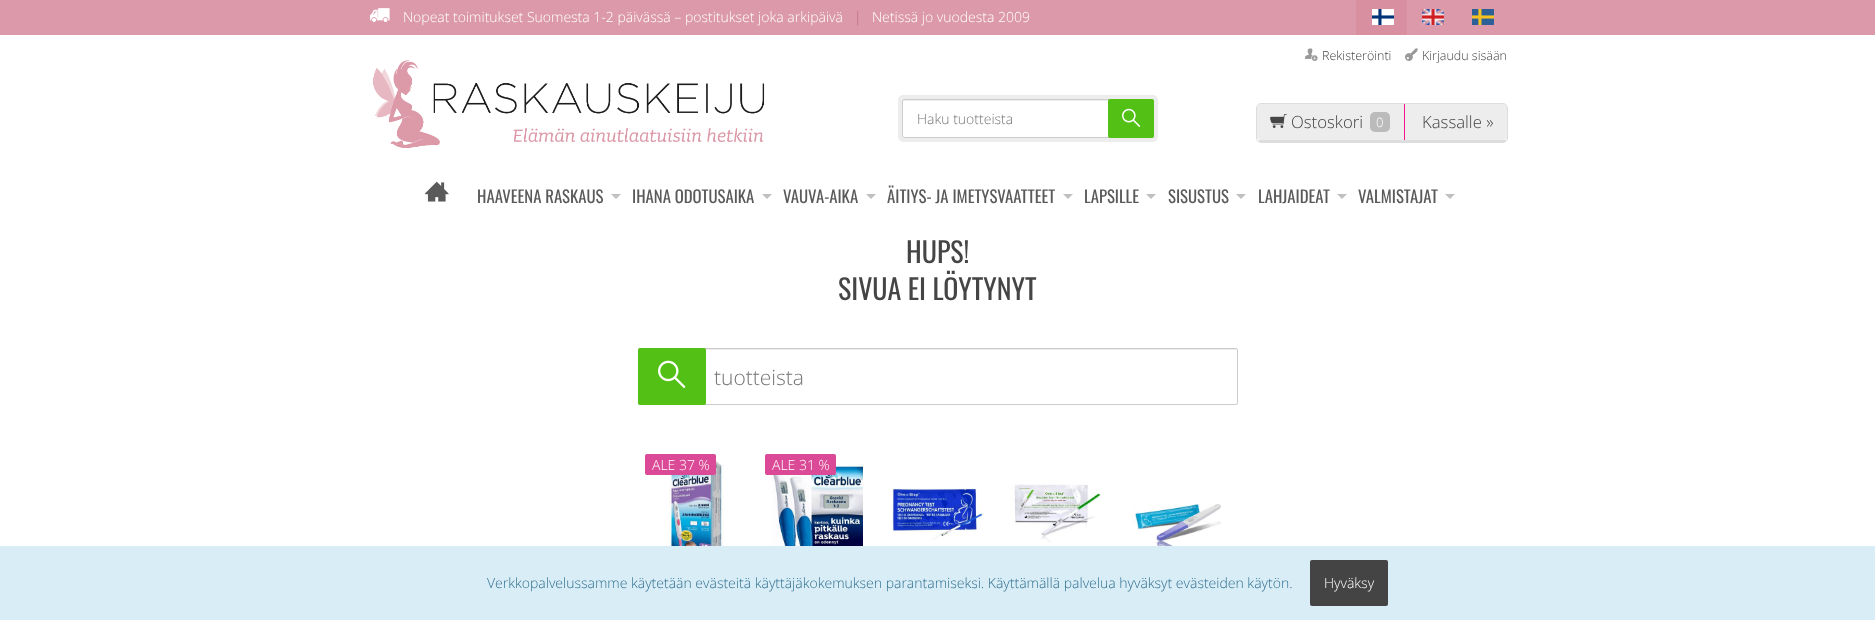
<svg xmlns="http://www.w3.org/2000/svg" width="1875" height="620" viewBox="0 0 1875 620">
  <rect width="100%" height="100%" fill="#fff"/>
  <path d="M0 0h1875v35H0z" fill="#dc99a9"/>
  <image x="370" y="8" width="20" height="14" href="img/1.png"/>
  <path d="M1356 0h51v35H1356z" fill="#d88f9f"/>
  <image x="1372" y="9" width="22" height="16" href="img/2.png"/>
  <image x="1422" y="9" width="22" height="16" href="img/3.png"/>
  <image x="1472" y="9" width="22" height="16" href="img/4.png"/>
  <image x="1305" y="48" width="13" height="13" href="img/5.png"/>
  <image x="1405" y="48" width="13" height="13" href="img/6.png"/>
  <image x="372" y="60" width="393" height="88" href="img/7.png"/>
  <rect x="900" y="97" width="256" height="43" rx="3" fill="none" stroke="#ededed" stroke-width="4"/>
  <path d="M904 101H1152C1153 101 1153 101 1153 102C1153 101 1153 100 1152 100H903V102C903 101 903 101 904 101Z" fill="#ececec"/>
  <rect x="902.5" y="99.5" width="251" height="38" rx="1.5" fill="none" stroke="#ccc"/>
  <rect x="1108" y="99" width="46" height="39" rx="2" fill="#52c014"/>
  <image x="1122" y="108" width="19" height="19" href="img/8.png"/>
  <path d="M1261 104H1503C1505 104 1507 106 1507 108V138C1507 139 1505 140 1503 140H1261C1259 140 1257 139 1257 138V108C1257 106 1259 104 1261 104Z" fill="#ededed"/>
  <rect x="1256.5" y="103.5" width="251" height="39" rx="4.5" fill="none" stroke="#ddd"/>
  <path d="M1259 140h247v2H1259z" fill="#ddd"/>
  <image x="1270" y="114" width="17" height="14" href="img/9.png"/>
  <rect x="1370" y="112" width="20" height="20" rx="5" fill="#bbb"/>
  <path d="M1404 104h1v36H1404z" fill="#f4158a"/>
  <image x="425" y="181" width="24" height="21" href="img/10.png"/>
  <path d="M611 194H621L616 199Z" fill="#c0c0c0"/>
  <path d="M762 194H772L767 199Z" fill="#c0c0c0"/>
  <path d="M866 194H876L871 199Z" fill="#c0c0c0"/>
  <path d="M1063 194H1073L1068 199Z" fill="#c0c0c0"/>
  <path d="M1146 194H1156L1151 199Z" fill="#c0c0c0"/>
  <path d="M1236 194H1246L1241 199Z" fill="#c0c0c0"/>
  <path d="M1337 194H1347L1342 199Z" fill="#c0c0c0"/>
  <path d="M1445 194H1455L1450 199Z" fill="#c0c0c0"/>
  <path d="M640 350H1236C1237 350 1237 350 1237 351C1237 350 1237 349 1236 349H640L639 350V351C639 350 639 350 640 350Z" fill="#ececec"/>
  <rect x="638.5" y="348.5" width="599" height="56" rx="1.5" fill="none" stroke="#ccc"/>
  <rect x="638" y="348" width="68" height="57" rx="2" fill="#52c014"/>
  <image x="658" y="360" width="28" height="28" href="img/11.png"/>
  <image x="669" y="454" width="56" height="92" href="img/12.png"/>
  <rect x="645" y="454" width="71" height="21" rx="2" fill="#db4a96"/>
  <image x="772" y="465" width="91" height="81" href="img/13.png"/>
  <rect x="765" y="454" width="71" height="21" rx="2" fill="#db4a96"/>
  <image x="892" y="488" width="91" height="52" href="img/14.png"/>
  <image x="1012" y="484" width="91" height="59" href="img/15.png"/>
  <image x="1132" y="504" width="89" height="42" href="img/16.png"/>
  <path d="M0 546h1875v74H0z" fill="#d9edf7"/>
  <rect x="1310" y="560" width="78" height="46" rx="2" fill="#444"/>
  <text x="403" y="22" font-family="Open Sans" font-size="14" font-weight="300" fill="#fff">Nopeat toimitukset Suomesta 1-2 päivässä – postitukset joka arkipäivä</text>
  <text x="854" y="22" font-family="Open Sans" font-size="14" font-weight="300" fill="#be697e">|</text>
  <text x="872" y="22" font-family="Open Sans" font-size="14" font-weight="300" fill="#fff">Netissä jo vuodesta 2009</text>
  <g font-family="Open Sans" font-size="12.5" font-weight="300" fill="#454545">
    <text x="1322" y="60">Rekisteröinti</text>
    <text x="1422" y="60">Kirjaudu sisään</text>
  </g>
  <text x="917" y="124" font-family="Open Sans" font-size="14" font-weight="300" fill="#757575">Haku tuotteista</text>
  <text x="1291" y="128" font-family="Open Sans" font-size="16.75" font-weight="300" fill="#454545">Ostoskori</text>
  <text x="1376" y="127" font-family="Open Sans" font-size="13" font-weight="300" fill="#fff">0</text>
  <text x="1422" y="128" font-family="Open Sans" font-size="16.75" font-weight="300" fill="#454545">Kassalle »</text>
  <g font-family="Oswald" font-size="16.75" fill="#5a5a5a">
    <text x="477" y="203">HAAVEENA RASKAUS</text>
    <text x="632" y="203">IHANA ODOTUSAIKA</text>
    <text x="783" y="203">VAUVA-AIKA</text>
    <text x="887" y="203">ÄITIYS- JA IMETYSVAATTEET</text>
    <text x="1084" y="203">LAPSILLE</text>
    <text x="1168" y="203">SISUSTUS</text>
    <text x="1258" y="203">LAHJAIDEAT</text>
    <text x="1358" y="203">VALMISTAJAT</text>
  </g>
  <g font-family="Oswald" font-size="28" fill="#454545">
    <text x="906" y="263">HUPS!</text>
    <text x="838" y="300">SIVUA EI LÖYTYNYT</text>
  </g>
  <text x="714" y="385" font-family="Open Sans" font-size="21" font-weight="300" fill="#757575">tuotteista</text>
  <g font-family="Open Sans" font-size="14" font-weight="300" fill="#fff">
    <text x="652" y="470">ALE 37 %</text>
    <text x="772" y="470">ALE 31 %</text>
  </g>
  <text x="487" y="588" font-family="Open Sans" font-size="14" font-weight="300" fill="#31708f">Verkkopalvelussamme käytetään evästeitä käyttäjäkokemuksen parantamiseksi. Käyttämällä palvelua hyväksyt evästeiden käytön.</text>
  <text x="1324" y="588" font-family="Open Sans" font-size="14" font-weight="300" fill="#fff">Hyväksy</text>
</svg>
